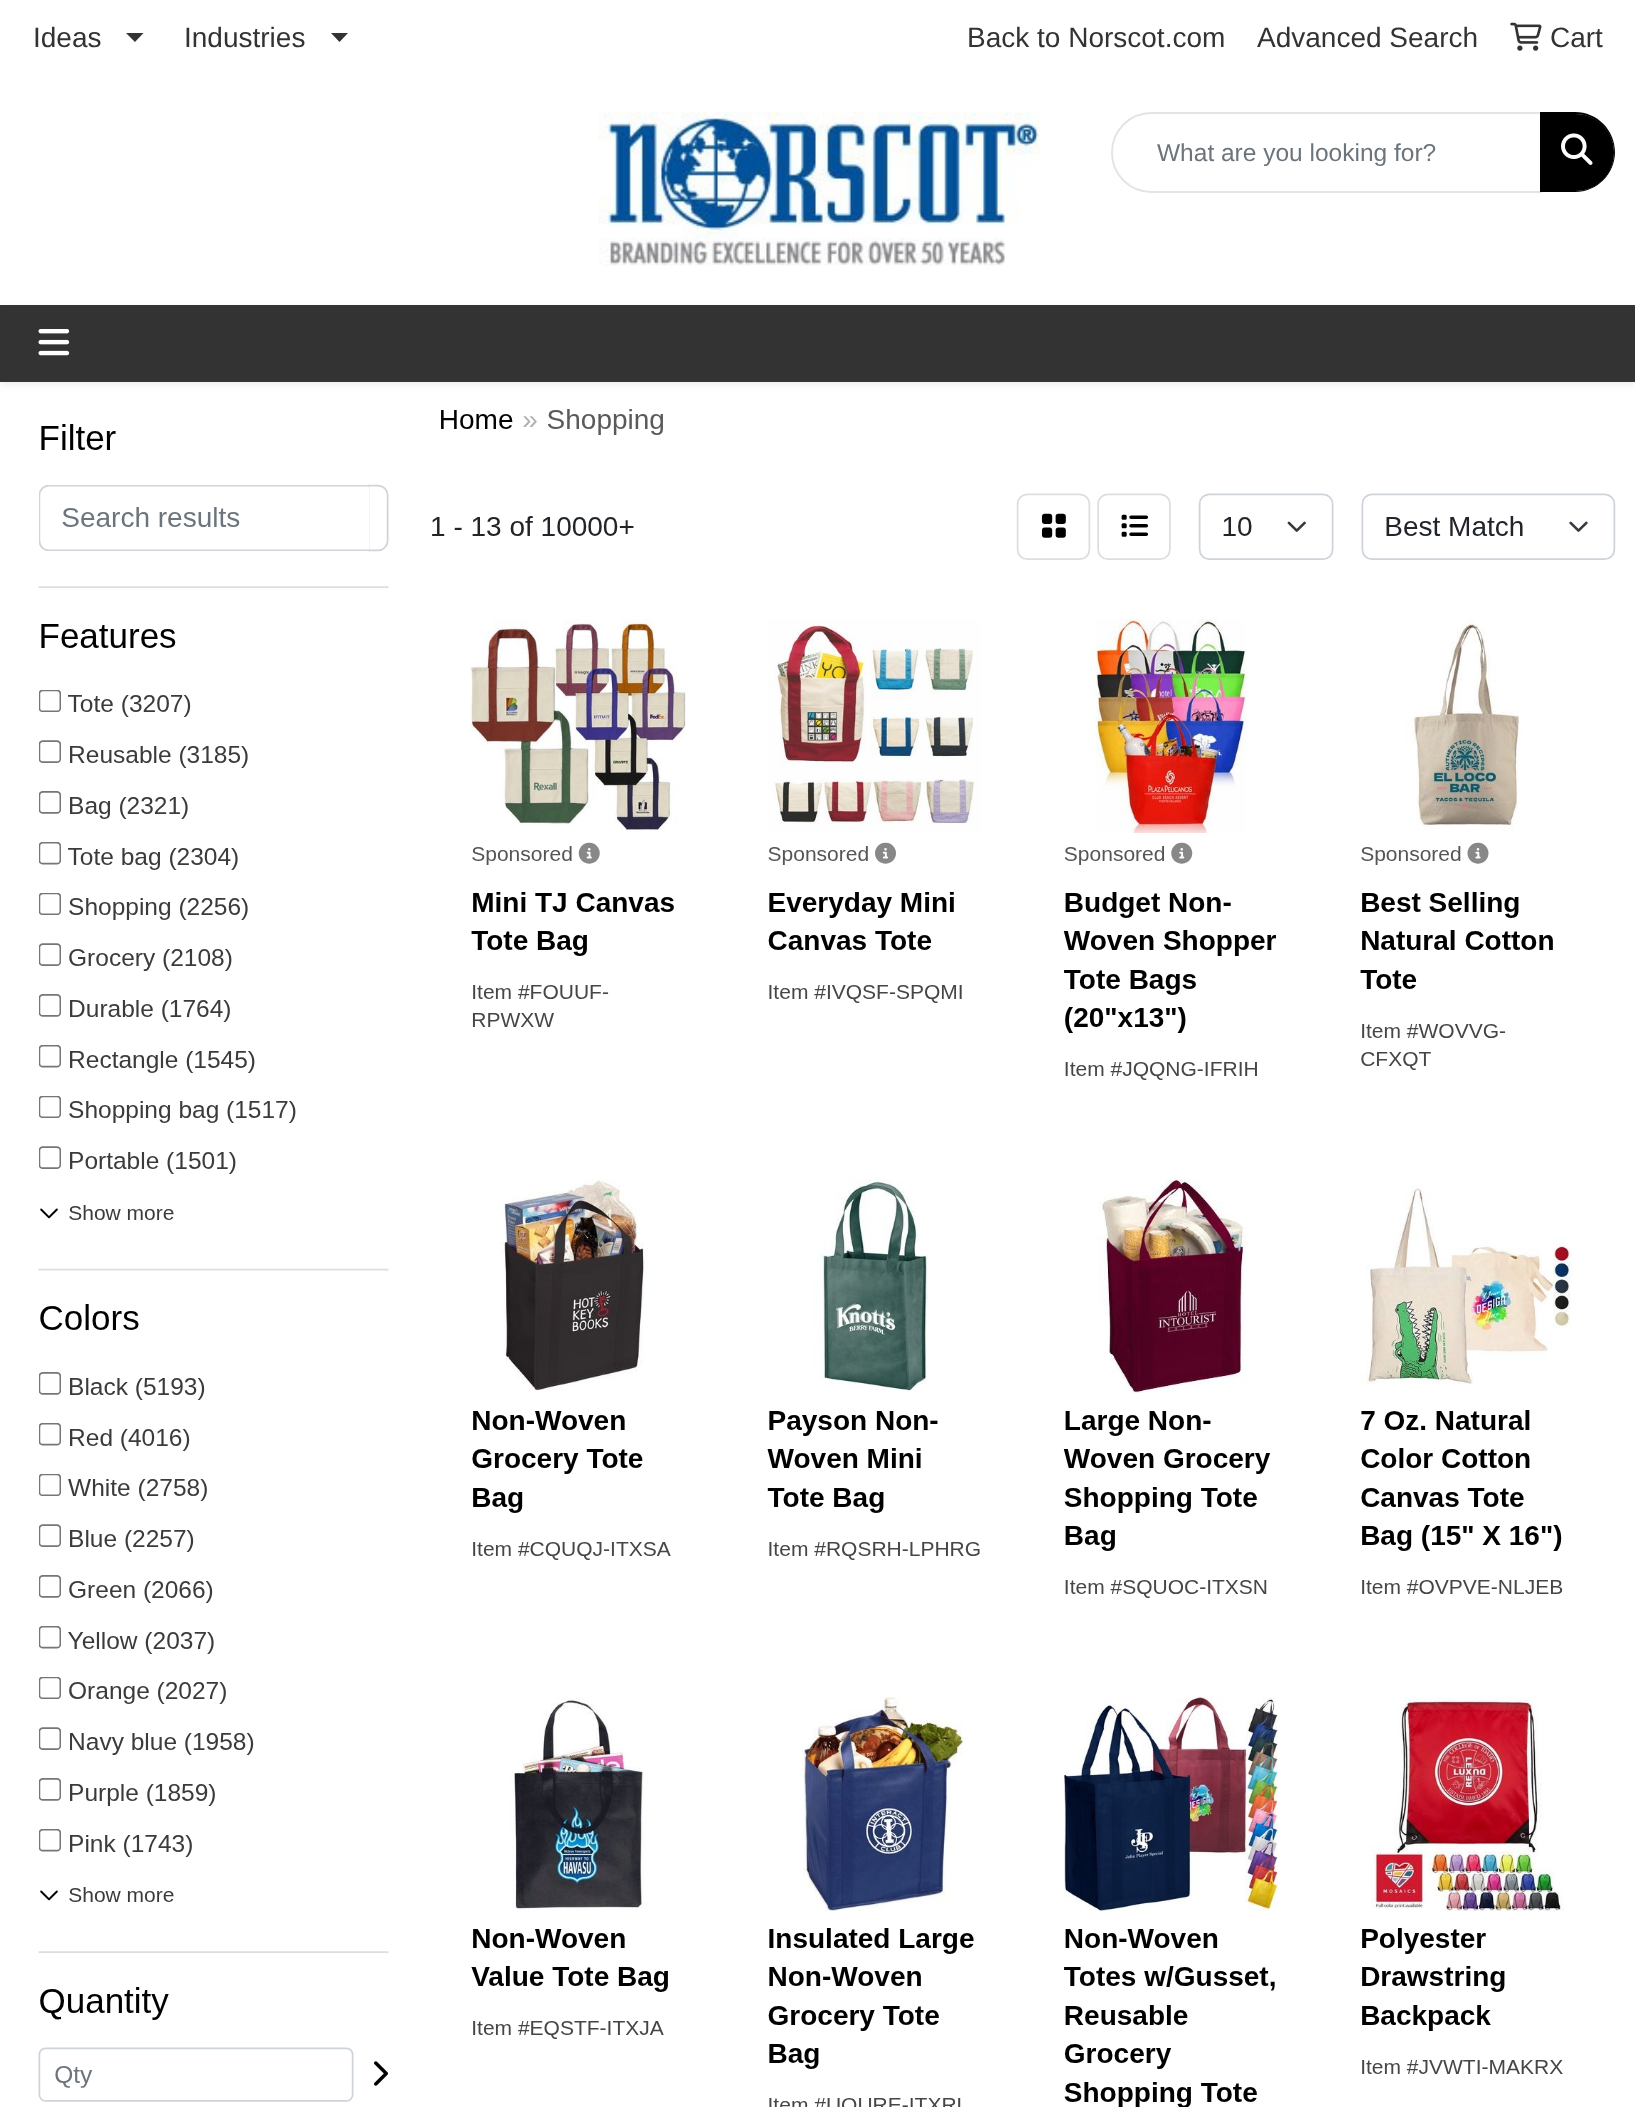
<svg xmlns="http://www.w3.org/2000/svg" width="1635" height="2107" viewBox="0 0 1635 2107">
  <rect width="100%" height="100%" fill="#fff"/>
  <path d="M126 33H143.5L135 42Z" fill="#333"/>
  <path d="M331 33H348L339.5 42Z" fill="#333"/>
  <image x="1510" y="22" width="32" height="29" href="img/1.png"/>
  <image x="598" y="112" width="442" height="154" href="img/2.png"/>
  <path d="M1151.5 113H1541V192H1151.5C1129.5 192 1112 174.5 1112 152.5C1112 130.5 1129.5 113 1151.5 113Z" fill="none" stroke="#e4e4e4" stroke-width="2"/>
  <path d="M1540 114H1575.5C1597 114 1614 131 1614 152.5C1614 174 1597 191 1575.5 191H1540Z" fill="#000"/>
  <path d="M1540 112H1575C1597 112 1615 130 1615 152C1615 174 1597 192 1575 192H1540ZM1540 114H1575C1596 114 1614 131 1614 152C1614 174 1596 191 1575 191H1540Z" fill="#000" fill-rule="evenodd"/>
  <image x="1561" y="133" width="32" height="32" href="img/3.png"/>
  <path d="M0 308h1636v77H0z" fill="#00000012" filter="blur(3.5px)"/>
  <path d="M0 305h1635v77H0z" fill="#333"/>
  <image x="38" y="329" width="32" height="27" href="img/4.png"/>
  <image x="38" y="409" width="1578" height="1698" href="img/5.png"/>
  <g font-family="Liberation Sans" font-size="28" fill="#333">
    <text x="33" y="47">Ideas</text>
    <text x="184" y="47">Industries</text>
    <text x="967" y="47">Back to Norscot.com</text>
    <text x="1257" y="47">Advanced Search</text>
    <text x="1550" y="47">Cart</text>
  </g>
  <text x="1157" y="161" font-family="Liberation Sans" font-size="24.5" fill="#6c757d">What are you looking for?</text>
</svg>
